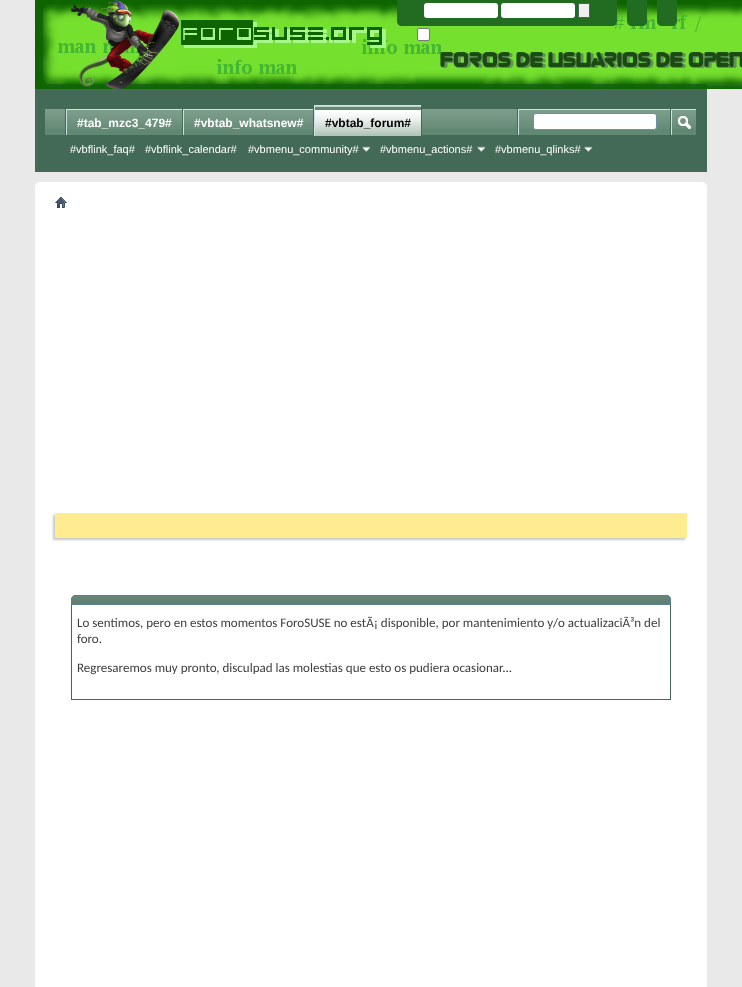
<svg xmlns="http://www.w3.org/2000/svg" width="742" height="987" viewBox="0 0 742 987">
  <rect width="100%" height="100%" fill="#e9e9e9"/>
  <path d="M35 0H707V167C707 170 705 172 702 172H40C37 172 35 170 35 167Z" fill="#426a57"/>
  <image x="36" y="1" width="671" height="22" href="img/1.png"/>
  <image x="35" y="0" width="707" height="89" href="img/2.png"/>
  <path d="M397 0H617V21C617 24 615 26 612 26H402C399 26 397 24 397 21Z" fill="#226c22"/>
  <rect x="424" y="3" width="74" height="15" rx="3" fill="#fff"/>
  <rect x="501" y="3" width="74" height="15" rx="3" fill="#fff"/>
  <path d="M578.5 3.5h11v14H578.5z" fill="#efefef" stroke="#426a57"/>
  <rect x="417.5" y="28.5" width="12" height="12" rx="1.5" fill="#fff" stroke="#767676"/>
  <path d="M627 0H647V21C647 24 645 26 642 26H632C629 26 627 24 627 21Z" fill="#226c22"/>
  <path d="M657 0H677V21C677 24 675 26 672 26H662C659 26 657 24 657 21Z" fill="#226c22"/>
  <path d="M40 104H702V167H40Z" fill="#426a57" stroke="#426a57" stroke-width="10"/>
  <path d="M45 109h651v26H45z" fill="#618872"/>
  <image x="45" y="109" width="651" height="20" href="img/3.png"/>
  <path d="M182 109h1v27H182z" fill="#426a57"/>
  <path d="M65 109h1v27H65z" fill="#426a57"/>
  <path d="M67 110h115v19H67z" fill="#618872"/>
  <image x="67" y="110" width="115" height="20" href="img/4.png"/>
  <path d="M66 109h116v1H66z" fill="#cedfeb"/>
  <path d="M66 109h1v27H66z" fill="#cedfeb"/>
  <path d="M313 109h1v27H313z" fill="#426a57"/>
  <path d="M184 110h129v19H184z" fill="#618872"/>
  <image x="184" y="110" width="129" height="20" href="img/5.png"/>
  <path d="M183 109h130v1H183z" fill="#cedfeb"/>
  <path d="M183 109h1v27H183z" fill="#cedfeb"/>
  <path d="M421 109h1v26H421z" fill="#426a57"/>
  <path d="M315 106h106v30H315z" fill="#618872"/>
  <image x="315" y="106" width="106" height="30" href="img/6.png"/>
  <path d="M314 105h107v1H314z" fill="#cedfeb"/>
  <path d="M314 105h1v31H314z" fill="#cedfeb"/>
  <path d="M66 135h118v1H66z" fill="#426a57"/>
  <image x="362" y="146" width="9" height="6" href="img/7.png"/>
  <image x="477" y="146" width="9" height="6" href="img/7.png"/>
  <image x="584" y="146" width="9" height="6" href="img/7.png"/>
  <path d="M517 109h1v26H517z" fill="#426a57"/>
  <path d="M518 109h152v1H518z" fill="#cedfeb"/>
  <path d="M518 109h1v26H518z" fill="#cedfeb"/>
  <rect x="533.5" y="113.5" width="123" height="16" rx="2.5" fill="#fff" stroke="#6b91ab"/>
  <path d="M670 109h1v26H670z" fill="#426a57"/>
  <path d="M671 109h25v1H671z" fill="#cedfeb"/>
  <path d="M671 109h1v26H671z" fill="#cedfeb"/>
  <image x="678" y="116" width="13" height="14" href="img/8.png"/>
  <rect x="35" y="182" width="672" height="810" rx="5" fill="#fff"/>
  <image x="55" y="197" width="12" height="11" href="img/9.png"/>
  <path d="M53 515h632v25H53z" fill="#c8c8c8" filter="blur(1px)"/>
  <path d="M55 513h632v25H55z" fill="#ffeb90"/>
  <path d="M76 595H666C669 595 671 597 671 600V605H71V600C71 597 73 595 76 595Z" fill="#466b5a"/>
  <image x="71" y="596" width="600" height="8" href="img/10.png"/>
  <path d="M76 595.5H666C668.5 595.5 670.5 597.5 670.5 600V604.5H71.5V600C71.5 597.5 73.5 595.5 76 595.5Z" fill="none" stroke="#5a7f97"/>
  <path d="M670 605h1v95H670z" fill="#426a57"/>
  <path d="M71 699h600v1H71z" fill="#426a57"/>
  <path d="M71 605h1v95H71z" fill="#426a57"/>
  <g font-family="Liberation Sans" font-size="12" font-weight="bold" fill="#fff">
    <text x="77" y="127">#tab_mzc3_479#</text>
    <text x="194" y="127">#vbtab_whatsnew#</text>
  </g>
  <text x="325" y="127" font-family="Liberation Sans" font-size="12" font-weight="bold" fill="#000">#vbtab_forum#</text>
  <g font-family="Liberation Sans" font-size="11" fill="#fff">
    <text x="70" y="153">#vbflink_faq#</text>
    <text x="145" y="153">#vbflink_calendar#</text>
    <text x="248" y="153">#vbmenu_community#</text>
    <text x="380" y="153">#vbmenu_actions#</text>
    <text x="495" y="153">#vbmenu_qlinks#</text>
  </g>
  <g font-family="Carlito" font-size="13" fill="#3e3e3e">
    <text x="77" y="627">Lo sentimos, pero en estos momentos ForoSUSE no estÃ¡ disponible, por mantenimiento y/o actualizaciÃ³n del</text>
    <text x="77" y="643">foro.</text>
    <text x="77" y="672">Regresaremos muy pronto, disculpad las molestias que esto os pudiera ocasionar...</text>
  </g>
</svg>
